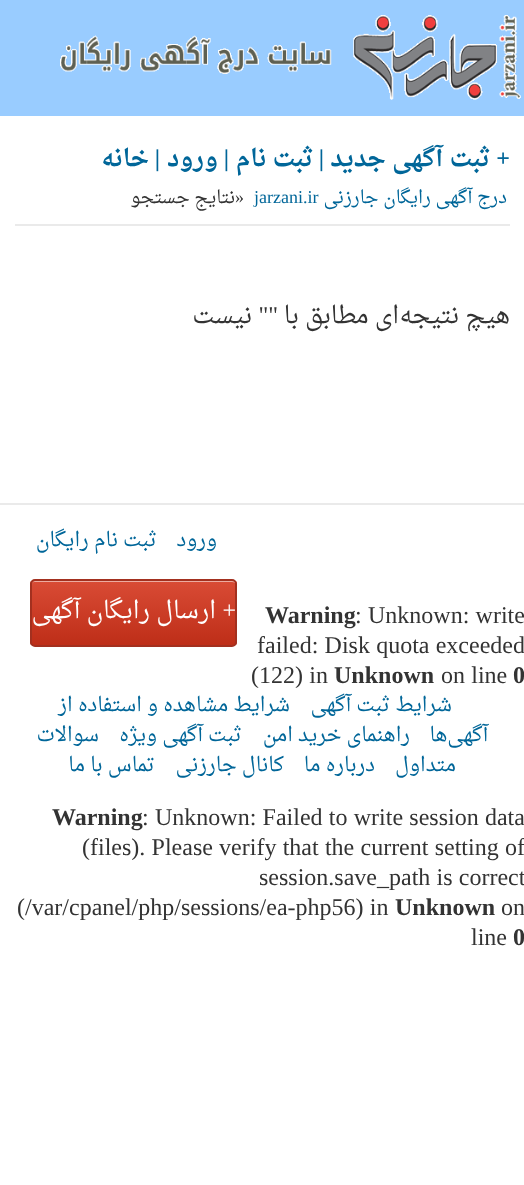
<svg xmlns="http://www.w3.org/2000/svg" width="524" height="1185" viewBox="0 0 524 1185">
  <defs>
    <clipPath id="clip1"><rect x="30" y="579" width="207" height="68" rx="5"/></clipPath>
    <linearGradient id="g1" gradientUnits="userSpaceOnUse" x1="236" y1="581" x2="236" y2="645"><stop offset="0" stop-color="#d94b35"/><stop offset="1" stop-color="#be2e18"/></linearGradient>
  </defs>
  <rect width="100%" height="100%" fill="#fff"/>
  <path d="M0 0h524v116H0z" fill="#9cf"/>
  <image x="60" y="15" width="461" height="85" href="img/1.png"/>
  <path d="M15 224h495v2H15z" fill="#eaeaea"/>
  <path d="M0 503h524v2H0z" fill="#eaeaea"/>
  <g clip-path="url(#clip1)">
    <path d="M30 581h207v64H30z" fill="url(#g1)"/>
  </g>
  <path d="M34 582H232C234 582 236 583 236 585C236 583 235 581 233 581H35C33 581 32 583 32 585C32 583 33 582 34 582Z" fill="#edaba0"/>
  <rect x="31" y="580" width="205" height="66" rx="4" fill="none" stroke="#a3301f" stroke-width="2"/>
  <text x="149" y="166" font-family="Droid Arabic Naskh" font-size="24" font-weight="bold" direction="rtl" fill="#069">خانه</text>
  <text x="160" y="166" font-family="Liberation Serif" font-size="24" font-weight="bold" direction="rtl" fill="#069">|</text>
  <text x="218" y="166" font-family="Droid Arabic Naskh" font-size="24" font-weight="bold" direction="rtl" fill="#069">ورود</text>
  <text x="229" y="166" font-family="Liberation Serif" font-size="24" font-weight="bold" direction="rtl" fill="#069">|</text>
  <text x="313" y="166" font-family="Droid Arabic Naskh" font-size="24" font-weight="bold" direction="rtl" fill="#069">ثبت نام</text>
  <text x="324" y="166" font-family="Liberation Serif" font-size="24" font-weight="bold" direction="rtl" fill="#069">|</text>
  <text x="490" y="166" font-family="Droid Arabic Naskh" font-size="24" font-weight="bold" direction="rtl" fill="#069">ثبت آگهی جدید</text>
  <text x="510" y="166" font-family="Liberation Serif" font-size="24" font-weight="bold" direction="rtl" fill="#069">+</text>
  <text x="235" y="203" font-family="Droid Arabic Naskh" font-size="18" direction="rtl" fill="#333">نتایج جستجو</text>
  <text x="235" y="203" font-family="Liberation Serif" font-size="18" fill="#333">»</text>
  <text x="254" y="203" font-family="Liberation Serif" font-size="18" fill="#069">jarzani.ir</text>
  <text x="507" y="203" font-family="Droid Arabic Naskh" font-size="18" direction="rtl" fill="#069">درج آگهی رایگان جارزنی</text>
  <text x="252" y="323" font-family="Droid Arabic Naskh" font-size="24" direction="rtl" fill="#333">نیست</text>
  <text x="278" y="323" font-family="Liberation Serif" font-size="24" direction="rtl" fill="#333">""</text>
  <g font-family="Droid Arabic Naskh" font-size="24" direction="rtl" fill="#333">
    <text x="399" y="323">ای مطابق با</text>
    <text x="510" y="323">هیچ نتیجه</text>
  </g>
  <g font-family="Droid Arabic Naskh" font-size="20" direction="rtl" fill="#069">
    <text x="157" y="546">ثبت نام رایگان</text>
    <text x="217" y="546">ورود</text>
  </g>
  <text x="216" y="618" font-family="Droid Arabic Naskh" font-size="24" direction="rtl" fill="#fff">ارسال رایگان آگهی</text>
  <text x="236" y="618" font-family="Liberation Serif" font-size="24" direction="rtl" fill="#fff">+</text>
  <g font-family="Droid Arabic Naskh" font-size="20" direction="rtl" fill="#069">
    <text x="290" y="711">شرایط مشاهده و استفاده از</text>
    <text x="452" y="711">شرایط ثبت آگهی</text>
    <text x="99" y="741">سوالات</text>
    <text x="242" y="741">ثبت آگهی ویژه</text>
    <text x="410" y="741">راهنمای خرید امن</text>
    <text x="488" y="741">آگهی‌ها</text>
    <text x="155" y="771">تماس با ما</text>
    <text x="284" y="771">کانال جارزنی</text>
    <text x="375" y="771">درباره ما</text>
    <text x="456" y="771">متداول</text>
  </g>
  <text x="265" y="623" font-family="Liberation Serif" font-size="24" font-weight="bold" fill="#333">Warning</text>
  <g font-family="Liberation Serif" font-size="24" fill="#333">
    <text x="355" y="623">:</text>
    <text x="368" y="623" word-spacing="0.25">Unknown: write</text>
    <text x="257" y="653" word-spacing="0.25">failed: Disk quota exceeded</text>
    <text x="251" y="683" word-spacing="0.25">(122) in</text>
  </g>
  <text x="334" y="683" font-family="Liberation Serif" font-size="24" font-weight="bold" fill="#333">Unknown</text>
  <text x="441" y="683" word-spacing="0.25" font-family="Liberation Serif" font-size="24" fill="#333">on line</text>
  <g font-family="Liberation Serif" font-size="24" font-weight="bold" fill="#333">
    <text x="513" y="683">0</text>
    <text x="52" y="825">Warning</text>
  </g>
  <g font-family="Liberation Serif" font-size="24" fill="#333">
    <text x="142" y="825">:</text>
    <text x="155" y="825" word-spacing="0.25">Unknown: Failed to write session data</text>
    <text x="82" y="855" word-spacing="0.25">(files). Please verify that the current setting of</text>
    <text x="259" y="885" word-spacing="0.25">session.save_path is correct</text>
    <text x="17" y="915" word-spacing="0.25">(/var/cpanel/php/sessions/ea-php56) in</text>
  </g>
  <text x="395" y="915" font-family="Liberation Serif" font-size="24" font-weight="bold" fill="#333">Unknown</text>
  <g font-family="Liberation Serif" font-size="24" fill="#333">
    <text x="501" y="915">on</text>
    <text x="471" y="945">line</text>
  </g>
  <text x="513" y="945" font-family="Liberation Serif" font-size="24" font-weight="bold" fill="#333">0</text>
</svg>
